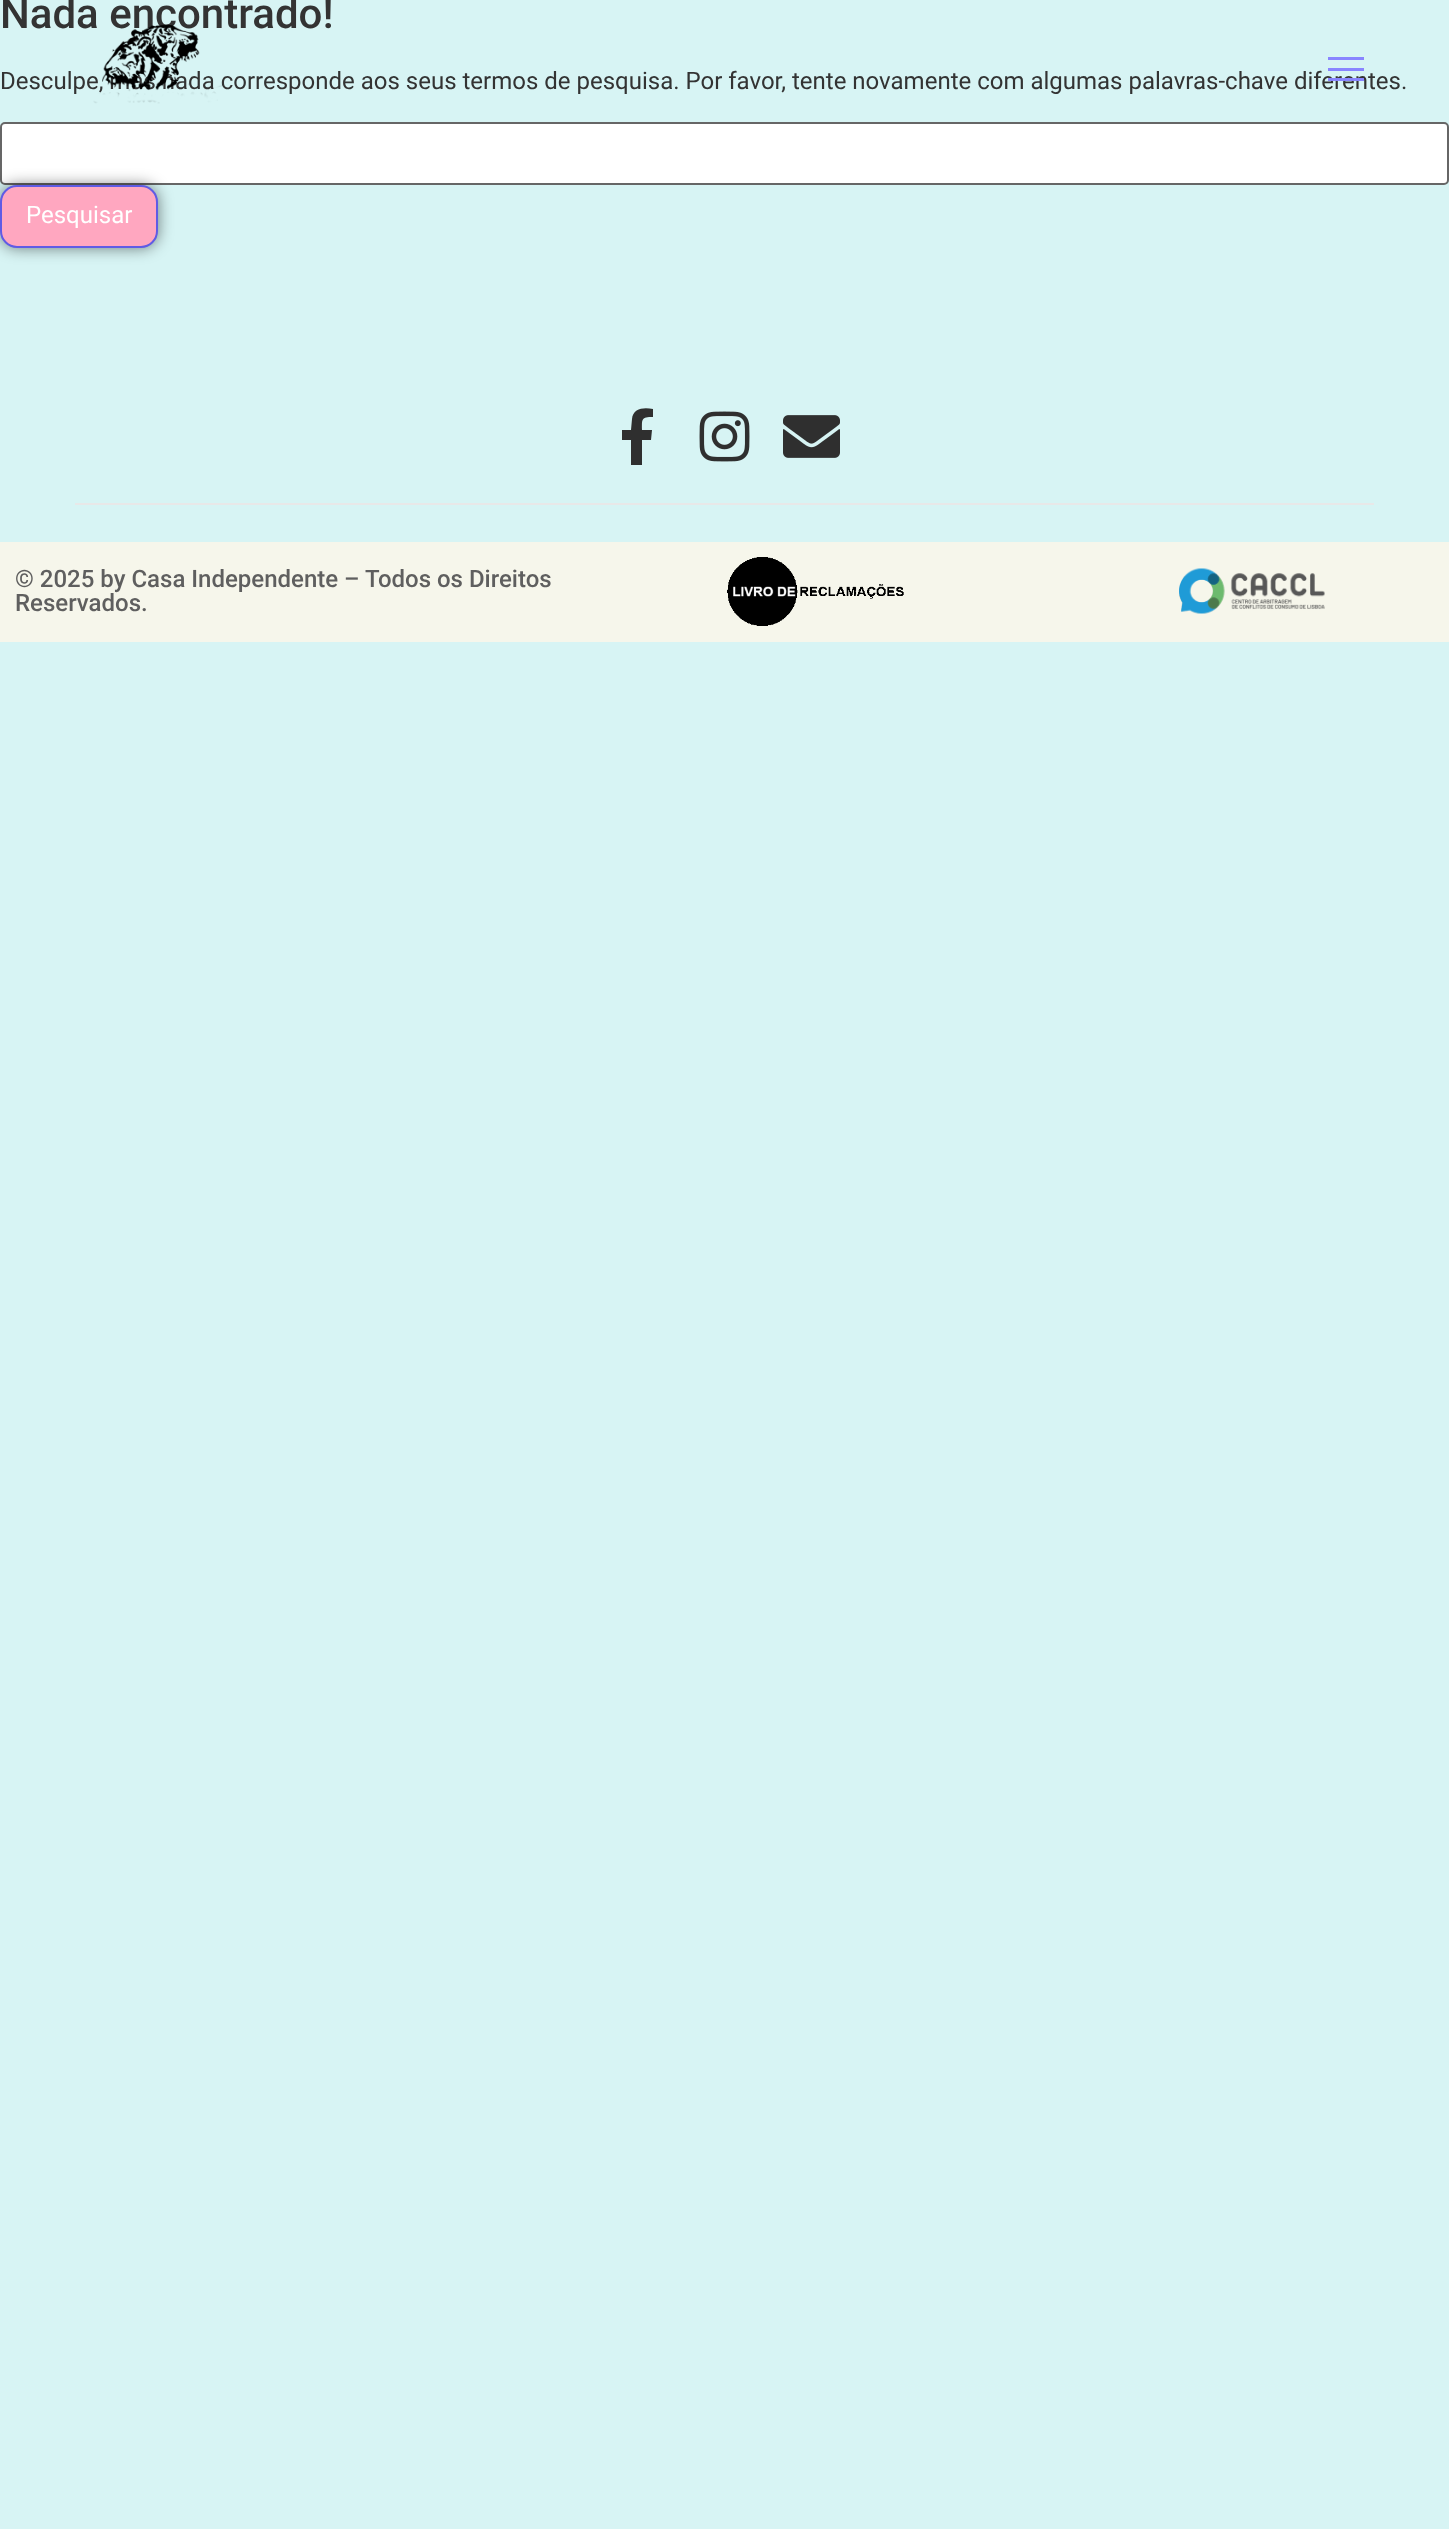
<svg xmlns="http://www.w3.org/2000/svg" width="1449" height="2529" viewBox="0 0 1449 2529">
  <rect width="100%" height="100%" fill="#d7f4f4"/>
  <rect x="1" y="123" width="1447" height="61" rx="4" fill="#fff" stroke="#666" stroke-width="2"/>
  <rect y="185" width="158" height="63" rx="17" fill="#00000080" filter="blur(7.5px)"/>
  <rect x="1" y="186" width="156" height="61" rx="16" fill="#ffa7c0" stroke="#605be5" stroke-width="2"/>
  <path d="M1328 57h36v3H1328z" fill="#8985ff"/>
  <path d="M651 440L652 430H642C642 419 641 417 653 417V409C644 407 633 408 632 419L631 430H622V440H631V465H642V440Z" fill="#2f2f2f"/>
  <image x="699" y="411" width="51" height="51" href="img/2.png"/>
  <image x="783" y="415" width="57" height="43" href="img/3.png"/>
  <path d="M75 503h1299v2H75z" fill="#e8e8e8"/>
  <path d="M0 542h1449v100H0z" fill="#f6f6eb"/>
  <image x="727" y="557" width="177" height="69" href="img/4.png"/>
  <image x="1179" y="568" width="146" height="46" href="img/5.png"/>
  <text x="0" y="28" font-family="Roboto" font-size="42" font-weight="500" fill="#333">Nada encontrado!</text>
  <text x="0" y="89" font-family="Roboto" font-size="24" fill="#333">Desculpe, mas nada corresponde aos seus termos de pesquisa. Por favor, tente novamente com algumas palavras-chave diferentes.</text>
  <text x="26" y="223" font-family="Roboto" font-size="24" fill="#fff">Pesquisar</text>
  <image x="93" y="24" width="130" height="80" href="img/1.png"/>
  <path d="M1328 68h36v3H1328z" fill="#8985ff"/>
  <path d="M1328 78h36v3H1328z" fill="#8783fffa"/>
  <g font-family="Roboto" font-size="24" font-weight="500" fill="#5f5f5f">
    <text x="15" y="587">© 2025 by Casa Independente – Todos os Direitos</text>
    <text x="15" y="611">Reservados.</text>
  </g>
</svg>
